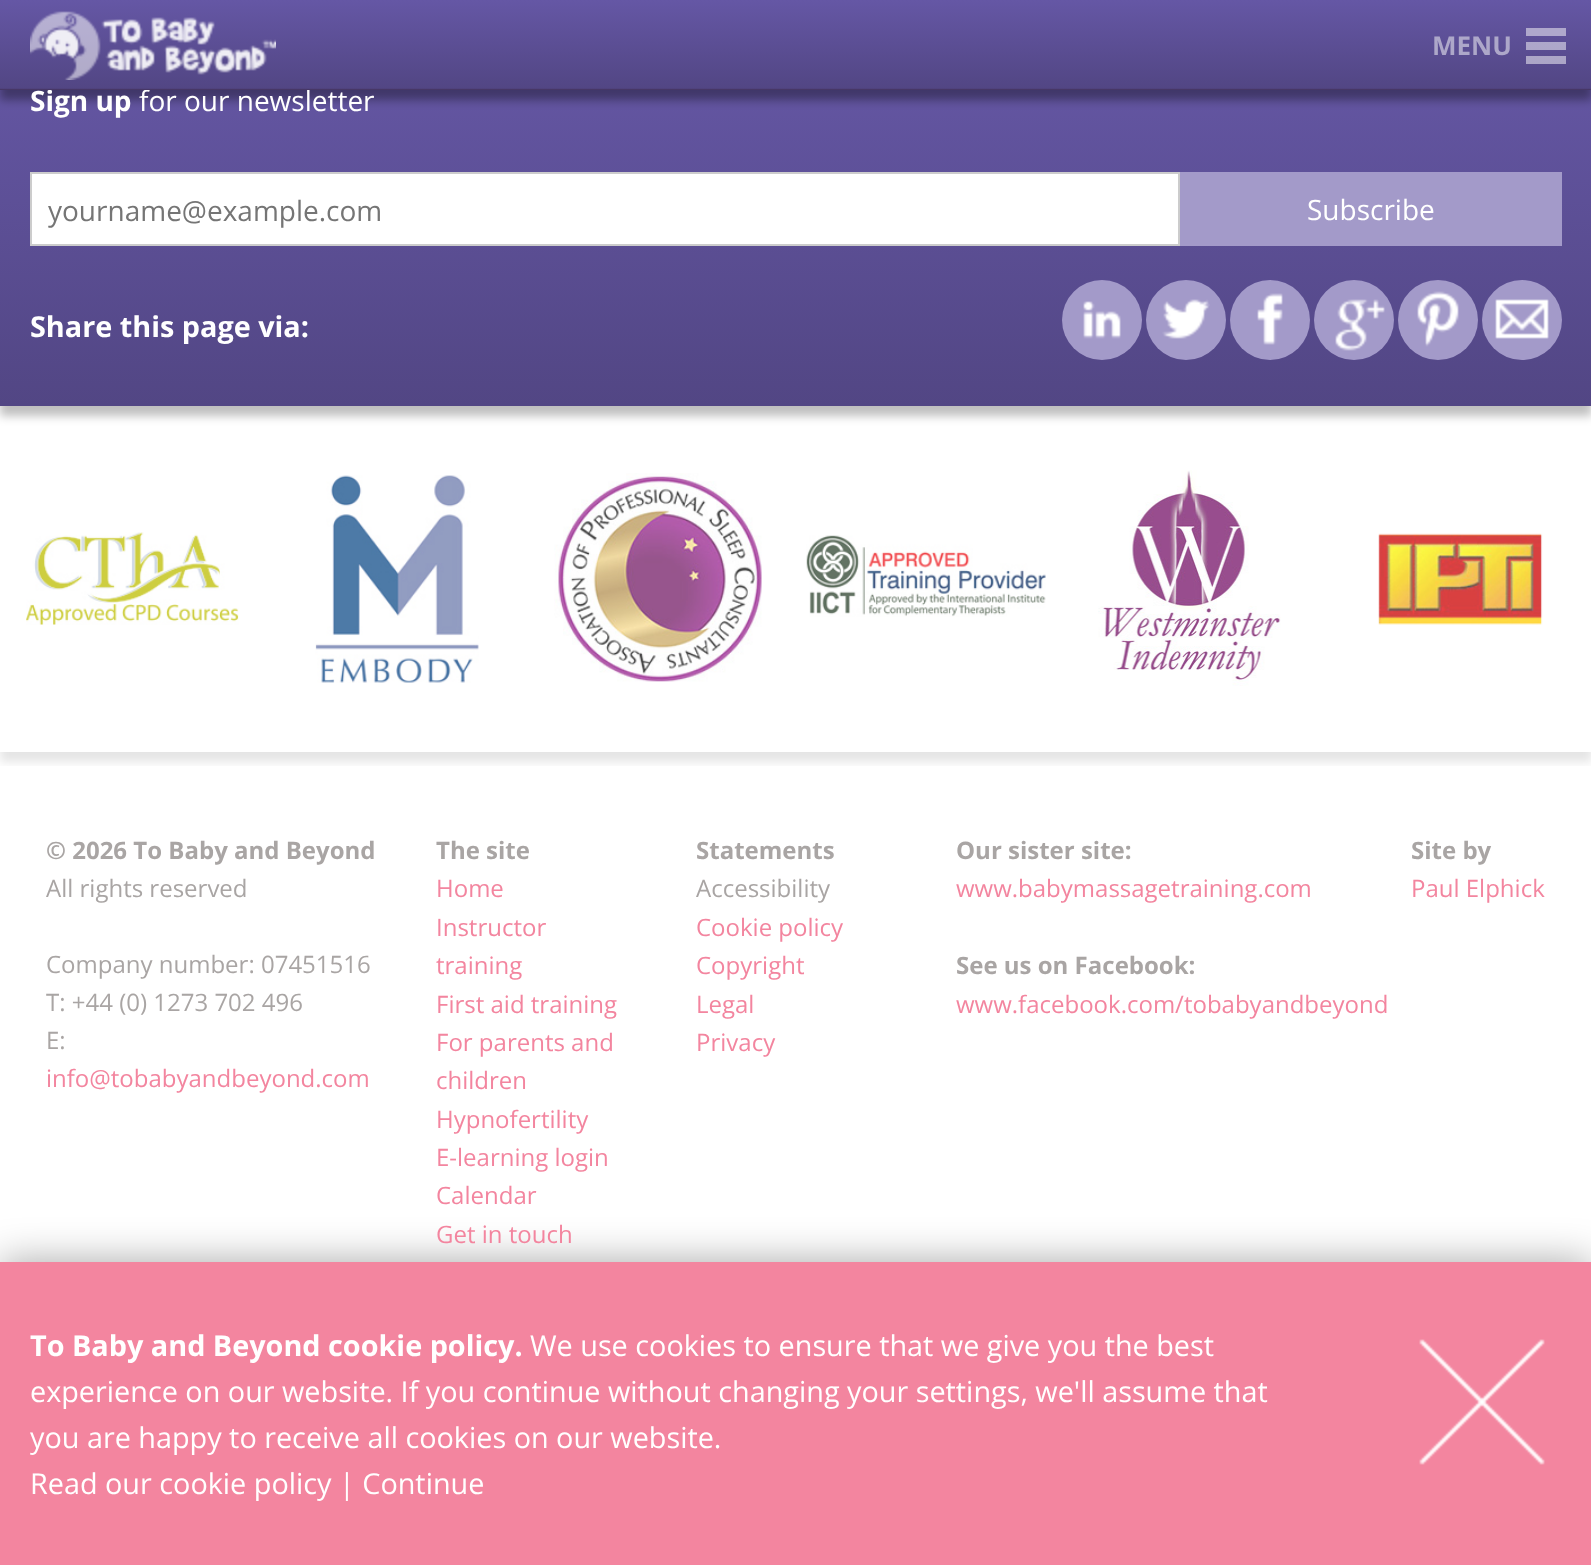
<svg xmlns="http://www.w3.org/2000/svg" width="1591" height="1565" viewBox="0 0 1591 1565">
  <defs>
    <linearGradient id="g1" gradientUnits="userSpaceOnUse" x1="796" y1="20" x2="796" y2="406"><stop offset="0" stop-color="#423b70"/><stop offset="0.08" stop-color="#6557a5"/><stop offset="1" stop-color="#524684"/></linearGradient>
    <clipPath id="clip1"><path d="M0 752h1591v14H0z"/></clipPath>
    <linearGradient id="g2" gradientUnits="userSpaceOnUse" x1="796" y1="0" x2="796" y2="90"><stop offset="0" stop-color="#6557a5"/><stop offset="0.98" stop-color="#524684"/><stop offset="1" stop-color="#43315b"/></linearGradient>
    <linearGradient id="g3" gradientUnits="userSpaceOnUse" x1="796" y1="0" x2="796" y2="90"><stop offset="0" stop-color="#b2abd2"/><stop offset="0.98" stop-color="#a9a3c2"/><stop offset="1" stop-color="#a198ad"/></linearGradient>
  </defs>
  <rect width="100%" height="100%" fill="#fff"/>
  <path d="M0 30h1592v386H0z" fill="#00000040" filter="blur(5px)"/>
  <path d="M0 90h1591v316H0z" fill="url(#g1)"/>
  <path d="M0 10h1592v90H0z" fill="#00000059" filter="blur(5px)"/>
  <path d="M0 1262h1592v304H0z" fill="#00000059" filter="blur(20px)"/>
  <path d="M0 1262h1591v303H0z" fill="#f3859f"/>
  <image x="1419" y="1339" width="126" height="126" href="img/2.png"/>
  <path d="M31 173h1148v72H31z" fill="#fff" stroke="#ccc" stroke-width="2"/>
  <path d="M1180 172h382v74H1180z" fill="#a39ac9"/>
  <circle cx="1102" cy="320" r="40" fill="#a39ac9"/>
  <image x="1083" y="301" width="38" height="38" href="img/3.png"/>
  <circle cx="1186" cy="320" r="40" fill="#a39ac9"/>
  <image x="1162" y="299" width="48" height="40" href="img/4.png"/>
  <circle cx="1270" cy="320" r="40" fill="#a39ac9"/>
  <image x="1257" y="293" width="26" height="52" href="img/5.png"/>
  <circle cx="1354" cy="320" r="40" fill="#a39ac9"/>
  <image x="1335" y="299" width="50" height="52" href="img/6.png"/>
  <circle cx="1438" cy="320" r="40" fill="#a39ac9"/>
  <image x="1417" y="291" width="42" height="56" href="img/7.png"/>
  <circle cx="1522" cy="320" r="40" fill="#a39ac9"/>
  <image x="1495" y="299" width="54" height="40" href="img/8.png"/>
  <g clip-path="url(#clip1)">
    <path d="M0 416h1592v346H0z" fill="#0000001a" filter="blur(5px)"/>
  </g>
  <image x="26" y="532" width="213" height="93" href="img/9.png"/>
  <image x="315" y="475" width="164" height="208" href="img/10.png"/>
  <image x="554" y="473" width="208" height="209" href="img/11.png"/>
  <image x="806" y="535" width="240" height="82" href="img/12.png"/>
  <image x="1098" y="470" width="183" height="216" href="img/13.png"/>
  <image x="1378" y="533" width="165" height="92" href="img/14.png"/>
  <text x="30" y="1356" font-family="Open Sans" font-size="28.8" font-weight="bold" fill="#fff">To Baby and Beyond cookie policy.</text>
  <g font-family="Open Sans" font-size="28.8" fill="#fff">
    <text x="530" y="1356">We use cookies to ensure that we give you the best</text>
    <text x="30" y="1402">experience on our website. If you continue without changing your settings, we'll assume that</text>
    <text x="30" y="1448">you are happy to receive all cookies on our website.</text>
    <text x="30" y="1494">Read our cookie policy | Continue</text>
  </g>
  <text x="30" y="111" font-family="Open Sans" font-size="28" font-weight="bold" fill="#fff">Sign up</text>
  <text x="139" y="111" font-family="Open Sans" font-size="28" fill="#fff">for our newsletter</text>
  <path d="M0 0h1591v90H0z" fill="url(#g2)"/>
  <path d="M1526 28h40v8H1526z" fill="#afa8cc"/>
  <text x="1432" y="55" font-family="Open Sans" font-size="26" font-weight="bold" fill="#ada7c9">MENU</text>
  <image x="30" y="11" width="246" height="69" href="img/1.png"/>
  <path d="M1526 56h40v8H1526z" fill="url(#g3)"/>
  <path d="M1526 42h40v8H1526z" fill="url(#g3)"/>
  <text x="48" y="221" font-family="Open Sans" font-size="28" fill="#757575">yourname@example.com</text>
  <text x="1307" y="220" font-family="Open Sans" font-size="28" fill="#fff">Subscribe</text>
  <text x="30" y="337" font-family="Open Sans" font-size="28.8" font-weight="bold" fill="#fff">Share this page via:</text>
  <text x="46" y="859" font-family="Open Sans" font-size="24" font-weight="bold" fill="#a9a5a4">© 2026 To Baby and Beyond</text>
  <g font-family="Open Sans" font-size="24" fill="#a9a5a4">
    <text x="46" y="897">All rights reserved</text>
    <text x="46" y="973">Company number: 07451516</text>
    <text x="46" y="1011">T: +44 (0) 1273 702 496</text>
    <text x="46" y="1049">E:</text>
  </g>
  <text x="46" y="1087" font-family="Open Sans" font-size="24" fill="#f3859f">info@tobabyandbeyond.com</text>
  <text x="436" y="859" font-family="Open Sans" font-size="24" font-weight="bold" fill="#a9a5a4">The site</text>
  <g font-family="Open Sans" font-size="24" fill="#f3859f">
    <text x="436" y="897">Home</text>
    <text x="436" y="936">Instructor</text>
    <text x="436" y="974">training</text>
    <text x="436" y="1013">First aid training</text>
    <text x="436" y="1051">For parents and</text>
    <text x="436" y="1089">children</text>
    <text x="436" y="1128">Hypnofertility</text>
    <text x="436" y="1166">E-learning login</text>
    <text x="436" y="1204">Calendar</text>
    <text x="436" y="1243">Get in touch</text>
  </g>
  <text x="696" y="859" font-family="Open Sans" font-size="24" font-weight="bold" fill="#a9a5a4">Statements</text>
  <text x="696" y="897" font-family="Open Sans" font-size="24" fill="#a9a5a4">Accessibility</text>
  <g font-family="Open Sans" font-size="24" fill="#f3859f">
    <text x="696" y="936">Cookie policy</text>
    <text x="696" y="974">Copyright</text>
    <text x="696" y="1013">Legal</text>
    <text x="696" y="1051">Privacy</text>
  </g>
  <text x="956" y="859" font-family="Open Sans" font-size="24" font-weight="bold" fill="#a9a5a4">Our sister site:</text>
  <text x="956" y="897" font-family="Open Sans" font-size="24" fill="#f3859f">www.babymassagetraining.com</text>
  <text x="956" y="974" font-family="Open Sans" font-size="24" font-weight="bold" fill="#a9a5a4">See us on Facebook:</text>
  <text x="956" y="1013" font-family="Open Sans" font-size="24" fill="#f3859f">www.facebook.com/tobabyandbeyond</text>
  <text x="1411" y="859" font-family="Open Sans" font-size="24" font-weight="bold" fill="#a9a5a4">Site by</text>
  <text x="1411" y="897" font-family="Open Sans" font-size="24" fill="#f3859f">Paul Elphick</text>
</svg>
